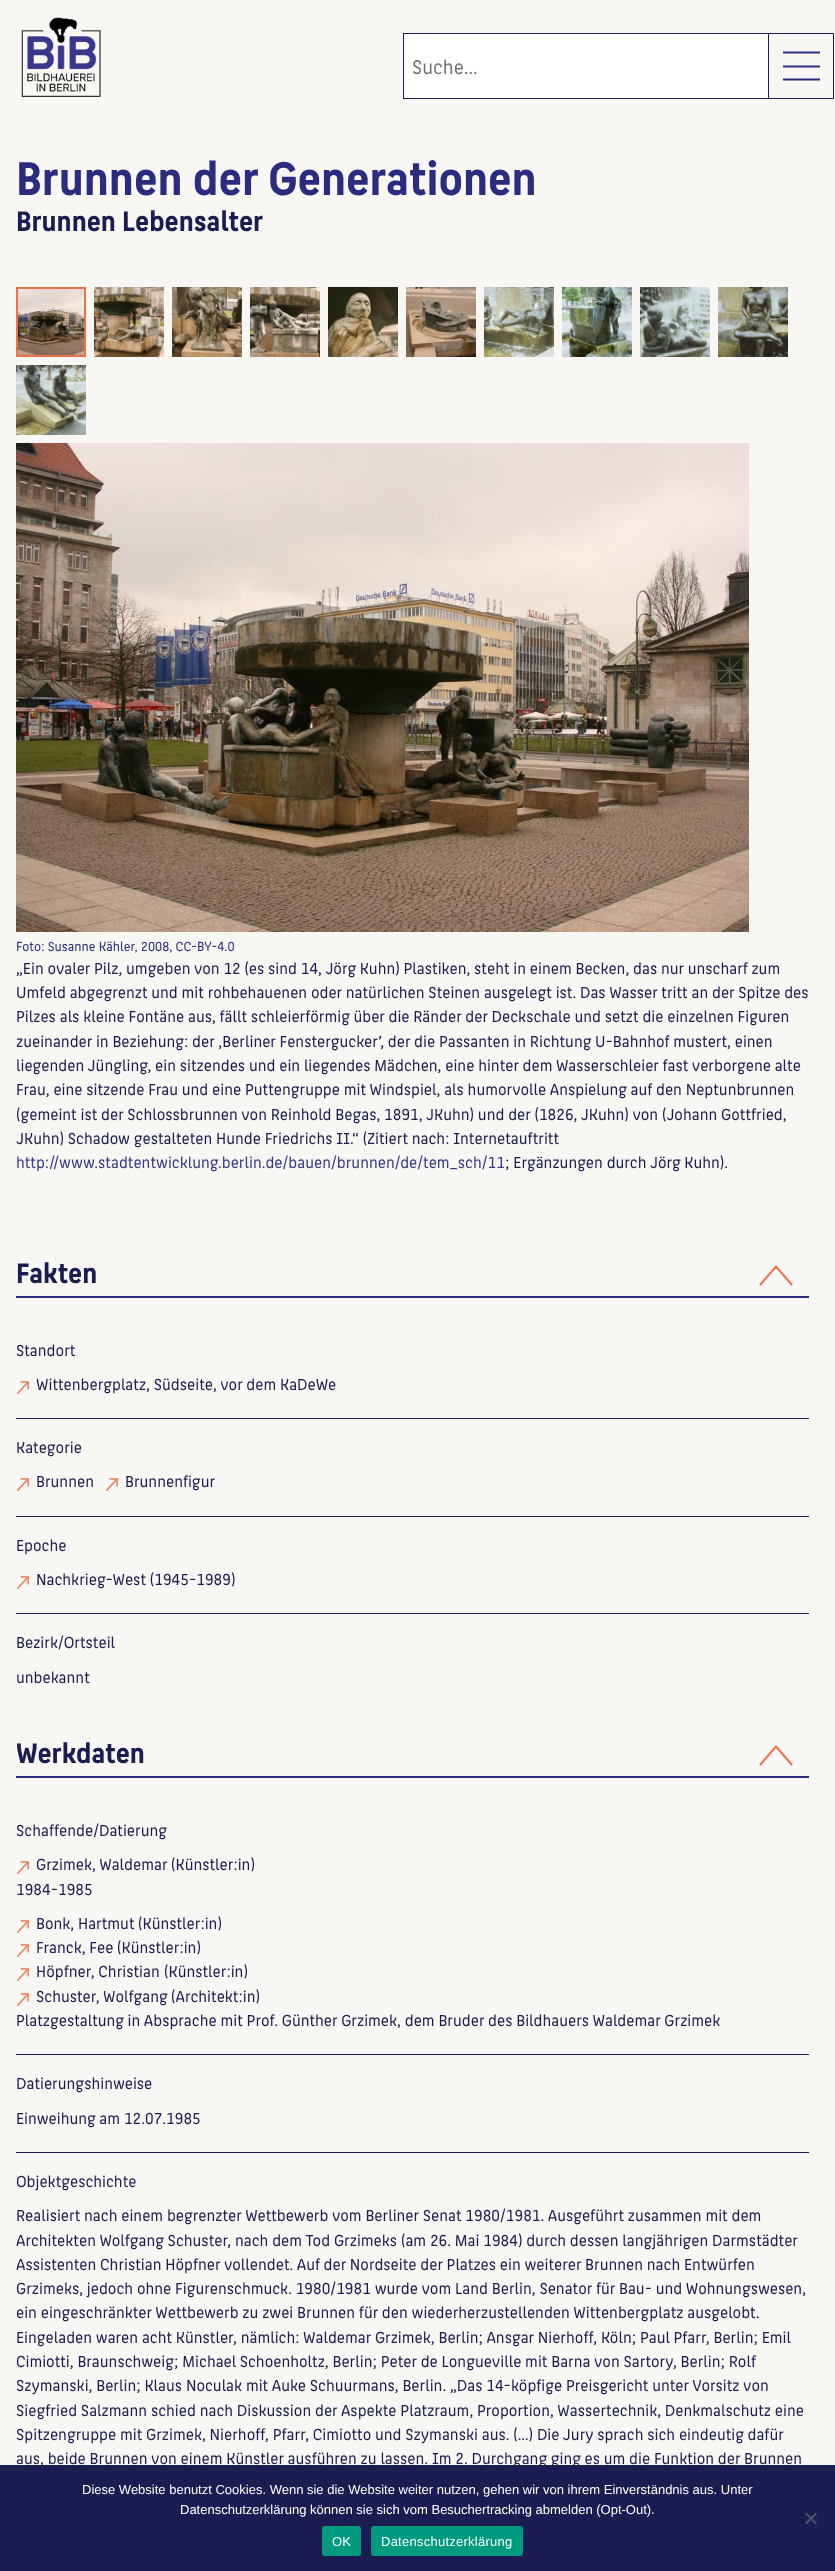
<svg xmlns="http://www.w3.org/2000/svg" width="835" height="2571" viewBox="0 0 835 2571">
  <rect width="100%" height="100%" fill="#f8f7f4"/>
  <image x="21" y="17" width="80" height="80" href="img/1.png"/>
  <path d="M404 34h364v64H404z" fill="#fff"/>
  <path d="M403 33h366v1H403z" fill="#1b1d52"/>
  <path d="M403 98h366v1H403z" fill="#1b1d52"/>
  <path d="M403 33h1v66H403z" fill="#1b1d52"/>
  <path d="M784 52.5H819M784 66.5H819M784 79.5H819" fill="none" stroke="#2a2d7f" stroke-width="2" stroke-linecap="square"/>
  <path d="M768.5 33.5h65v65H768.5z" fill="none" stroke="#1b1d52"/>
  <path d="M17 288h68v68H17z" fill="none" stroke="#f07148" stroke-width="2"/>
  <image x="94" y="287" width="70" height="70" href="img/2.png"/>
  <image x="172" y="287" width="70" height="70" href="img/3.png"/>
  <image x="250" y="287" width="70" height="70" href="img/4.png"/>
  <image x="328" y="287" width="70" height="70" href="img/5.png"/>
  <image x="406" y="287" width="70" height="70" href="img/6.png"/>
  <image x="484" y="287" width="70" height="70" href="img/7.png"/>
  <image x="562" y="287" width="70" height="70" href="img/8.png"/>
  <image x="640" y="287" width="70" height="70" href="img/9.png"/>
  <image x="718" y="287" width="70" height="70" href="img/10.png"/>
  <image x="18" y="289" width="66" height="66" href="img/11.png"/>
  <image x="16" y="365" width="70" height="70" href="img/12.png"/>
  <image x="16" y="443" width="733" height="489" href="img/13.png"/>
  <path d="M791.5 1284.5L776 1266.5L760.5 1284.5" fill="none" stroke="#f07148" stroke-width="2" stroke-linecap="round" stroke-linejoin="round"/>
  <path d="M16 1296h793v2H16z" fill="#2a2d7f"/>
  <image x="17" y="1381" width="12" height="13" href="img/14.png"/>
  <path d="M16 1418h793v1H16z" fill="#1b1d52"/>
  <image x="17" y="1478" width="12" height="13" href="img/14.png"/>
  <image x="106" y="1478" width="12" height="13" href="img/14.png"/>
  <path d="M16 1516h793v1H16z" fill="#1b1d52"/>
  <image x="17" y="1576" width="12" height="13" href="img/14.png"/>
  <path d="M16 1613h793v1H16z" fill="#1b1d52"/>
  <path d="M791.5 1764.5L776 1746.5L760.5 1764.5" fill="none" stroke="#f07148" stroke-width="2" stroke-linecap="round" stroke-linejoin="round"/>
  <path d="M16 1776h793v2H16z" fill="#2a2d7f"/>
  <image x="17" y="1861" width="12" height="13" href="img/14.png"/>
  <image x="17" y="1920" width="12" height="13" href="img/14.png"/>
  <image x="17" y="1944" width="12" height="13" href="img/14.png"/>
  <image x="17" y="1968" width="12" height="13" href="img/14.png"/>
  <image x="17" y="1993" width="12" height="13" href="img/14.png"/>
  <path d="M16 2054h793v1H16z" fill="#1b1d52"/>
  <path d="M16 2152h793v1H16z" fill="#1b1d52"/>
  <path d="M0 2465h835v106H0z" fill="#1b1d52"/>
  <path d="M815.5 2512.5L817 2514L806.5 2524.5L805 2523Z" fill="#4e4f69"/>
  <path d="M805 2514L806.5 2512.5L817 2523L815.5 2524.5Z" fill="#4e4f69"/>
  <rect x="322" y="2526" width="39" height="30" rx="3" fill="#009b7e"/>
  <rect x="371" y="2526" width="152" height="30" rx="3" fill="#009b7e"/>
  <text x="412" y="74" font-family="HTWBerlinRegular" font-size="21" fill="#757575">Suche...</text>
  <text x="16" y="195" font-family="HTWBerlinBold" font-size="50" font-weight="bold" fill="#2a2d7f">Brunnen der Generationen</text>
  <text x="16" y="231" font-family="HTWBerlinBold" font-size="30" font-weight="bold" fill="#1b1d52">Brunnen Lebensalter</text>
  <text x="16" y="951" font-family="HTWBerlinRegular" font-size="14" fill="#2a2d7f">Foto: Susanne Kähler, 2008, CC-BY-4.0</text>
  <g font-family="HTWBerlinRegular" font-size="17" fill="#1b1d52">
    <text x="16" y="974">„Ein ovaler Pilz, umgeben von 12 (es sind 14, Jörg Kuhn) Plastiken, steht in einem Becken, das nur unscharf zum</text>
    <text x="16" y="998">Umfeld abgegrenzt und mit rohbehauenen oder natürlichen Steinen ausgelegt ist. Das Wasser tritt an der Spitze des</text>
    <text x="16" y="1022">Pilzes als kleine Fontäne aus, fällt schleierförmig über die Ränder der Deckschale und setzt die einzelnen Figuren</text>
    <text x="16" y="1047">zueinander in Beziehung: der ‚Berliner Fenstergucker’, der die Passanten in Richtung U-Bahnhof mustert, einen</text>
    <text x="16" y="1071">liegenden Jüngling, ein sitzendes und ein liegendes Mädchen, eine hinter dem Wasserschleier fast verborgene alte</text>
    <text x="16" y="1095">Frau, eine sitzende Frau und eine Puttengruppe mit Windspiel, als humorvolle Anspielung auf den Neptunbrunnen</text>
    <text x="16" y="1120">(gemeint ist der Schlossbrunnen von Reinhold Begas, 1891, JKuhn) und der (1826, JKuhn) von (Johann Gottfried,</text>
    <text x="16" y="1144">JKuhn) Schadow gestalteten Hunde Friedrichs II.“ (Zitiert nach: Internetauftritt</text>
  </g>
  <text x="16" y="1168" font-family="HTWBerlinRegular" font-size="17" fill="#38378b">http://www.stadtentwicklung.berlin.de/bauen/brunnen/de/tem_sch/11</text>
  <text x="505" y="1168" font-family="HTWBerlinRegular" font-size="17" fill="#1b1d52">; Ergänzungen durch Jörg Kuhn).</text>
  <text x="16" y="1283" font-family="HTWBerlinBold" font-size="30" font-weight="bold" fill="#1b1d52">Fakten</text>
  <g font-family="HTWBerlinRegular" font-size="17" fill="#1b1d52">
    <text x="16" y="1356">Standort</text>
    <text x="36" y="1390">Wittenbergplatz, Südseite, vor dem KaDeWe</text>
    <text x="16" y="1453">Kategorie</text>
    <text x="36" y="1487">Brunnen</text>
    <text x="125" y="1487">Brunnenfigur</text>
    <text x="16" y="1551">Epoche</text>
    <text x="36" y="1585">Nachkrieg-West (1945-1989)</text>
    <text x="16" y="1648">Bezirk/Ortsteil</text>
    <text x="16" y="1683">unbekannt</text>
  </g>
  <text x="16" y="1763" font-family="HTWBerlinBold" font-size="30" font-weight="bold" fill="#1b1d52">Werkdaten</text>
  <g font-family="HTWBerlinRegular" font-size="17" fill="#1b1d52">
    <text x="16" y="1836">Schaffende/Datierung</text>
    <text x="36" y="1870">Grzimek, Waldemar</text>
    <text x="171" y="1870">(Künstler:in)</text>
    <text x="16" y="1895">1984-1985</text>
    <text x="36" y="1929">Bonk, Hartmut</text>
    <text x="138" y="1929">(Künstler:in)</text>
    <text x="36" y="1953">Franck, Fee</text>
    <text x="117" y="1953">(Künstler:in)</text>
    <text x="36" y="1977">Höpfner, Christian</text>
    <text x="164" y="1977">(Künstler:in)</text>
    <text x="36" y="2002">Schuster, Wolfgang</text>
    <text x="171" y="2002">(Architekt:in)</text>
    <text x="16" y="2026">Platzgestaltung in Absprache mit Prof. Günther Grzimek, dem Bruder des Bildhauers Waldemar Grzimek</text>
    <text x="16" y="2089">Datierungshinweise</text>
    <text x="16" y="2124">Einweihung am 12.07.1985</text>
    <text x="16" y="2187">Objektgeschichte</text>
    <text x="16" y="2221">Realisiert nach einem begrenzter Wettbewerb vom Berliner Senat 1980/1981. Ausgeführt zusammen mit dem</text>
    <text x="16" y="2246">Architekten Wolfgang Schuster, nach dem Tod Grzimeks (am 26. Mai 1984) durch dessen langjährigen Darmstädter</text>
    <text x="16" y="2270">Assistenten Christian Höpfner vollendet. Auf der Nordseite der Platzes ein weiterer Brunnen nach Entwürfen</text>
    <text x="16" y="2294">Grzimeks, jedoch ohne Figurenschmuck. 1980/1981 wurde vom Land Berlin, Senator für Bau- und Wohnungswesen,</text>
    <text x="16" y="2318">ein eingeschränkter Wettbewerb zu zwei Brunnen für den wiederherzustellenden Wittenbergplatz ausgelobt.</text>
    <text x="16" y="2343">Eingeladen waren acht Künstler, nämlich: Waldemar Grzimek, Berlin; Ansgar Nierhoff, Köln; Paul Pfarr, Berlin; Emil</text>
    <text x="16" y="2367">Cimiotti, Braunschweig; Michael Schoenholtz, Berlin; Peter de Longueville mit Barna von Sartory, Berlin; Rolf</text>
    <text x="16" y="2391">Szymanski, Berlin; Klaus Noculak mit Auke Schuurmans, Berlin. „Das 14-köpfige Preisgericht unter Vorsitz von</text>
    <text x="16" y="2416">Siegfried Salzmann schied nach Diskussion der Aspekte Platzraum, Proportion, Wassertechnik, Denkmalschutz eine</text>
    <text x="16" y="2440">Spitzengruppe mit Grzimek, Nierhoff, Pfarr, Cimiotto und Szymanski aus. (…) Die Jury sprach sich eindeutig dafür</text>
    <text x="16" y="2464">aus, beide Brunnen von einem Künstler ausführen zu lassen. Im 2. Durchgang ging es um die Funktion der Brunnen</text>
  </g>
  <g font-family="Liberation Sans" font-size="13" fill="#fff">
    <text x="82" y="2494">Diese Website benutzt Cookies. Wenn sie die Website weiter nutzen, gehen wir von ihrem Einverständnis aus. Unter</text>
    <text x="180" y="2514">Datenschutzerklärung können sie sich vom Besuchertracking abmelden (Opt-Out).</text>
  </g>
  <g font-family="Liberation Sans" font-size="13" letter-spacing="0.25" fill="#fff">
    <text x="332" y="2546">OK</text>
    <text x="381" y="2546">Datenschutzerklärung</text>
  </g>
</svg>
